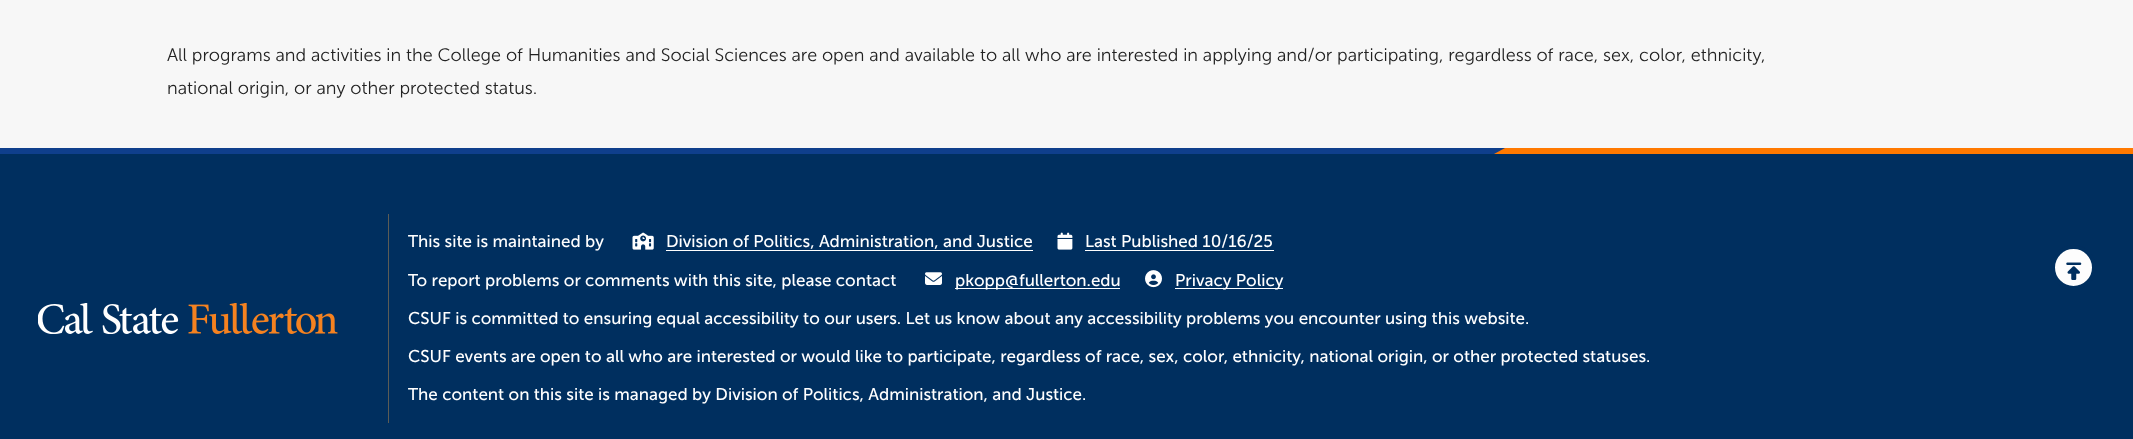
<svg xmlns="http://www.w3.org/2000/svg" width="2133" height="439" viewBox="0 0 2133 439">
  <rect width="100%" height="100%" fill="#f7f7f7"/>
  <path d="M0 154h2133v285H0z" fill="#002f5f"/>
  <path d="M0 148h1505v6H0z" fill="#0f3f8c"/>
  <path d="M1505 148H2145L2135 154H1494Z" fill="#ff7900"/>
  <image x="38" y="303" width="300" height="31" href="img/1.png"/>
  <path d="M388 214h1v209H388z" fill="#5c5c55"/>
  <image x="632" y="232" width="22" height="18" href="img/2.png"/>
  <path d="M666 250h367v1H666z" fill="#fff"/>
  <image x="1057" y="232" width="16" height="18" href="img/3.png"/>
  <path d="M1085 250h189v1H1085z" fill="#fff"/>
  <image x="925" y="272" width="17" height="13" href="img/4.png"/>
  <path d="M955 288h165v1H955z" fill="#fff"/>
  <image x="1145" y="270" width="17" height="18" href="img/5.png"/>
  <path d="M1175 288h108v1H1175z" fill="#fff"/>
  <circle cx="2073.5" cy="267.5" r="20.5" fill="#fdfdfd" stroke="#002f5f" stroke-width="4"/>
  <image x="2066" y="262" width="16" height="18" href="img/6.png"/>
  <g font-family="'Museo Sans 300'" font-size="18" font-weight="300" fill="#222">
    <text x="167" y="61">All programs and activities in the College of Humanities and Social Sciences are open and available to all who are interested in applying and/or participating, regardless of race, sex, color, ethnicity,</text>
    <text x="167" y="94">national origin, or any other protected status.</text>
  </g>
  <g font-family="'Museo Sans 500'" font-size="17" fill="#fff">
    <text x="408" y="247">This site is maintained by</text>
    <text x="666" y="247">Division of Politics, Administration, and Justice</text>
    <text x="1085" y="247">Last Published 10/16/25</text>
    <text x="408" y="286">To report problems or comments with this site, please contact</text>
    <text x="955" y="286">pkopp@fullerton.edu</text>
    <text x="1175" y="286">Privacy Policy</text>
    <text x="408" y="324">CSUF is committed to ensuring equal accessibility to our users. Let us know about any accessibility problems you encounter using this website.</text>
    <text x="408" y="362">CSUF events are open to all who are interested or would like to participate, regardless of race, sex, color, ethnicity, national origin, or other protected statuses.</text>
    <text x="408" y="400">The content on this site is managed by Division of Politics, Administration, and Justice.</text>
  </g>
</svg>
